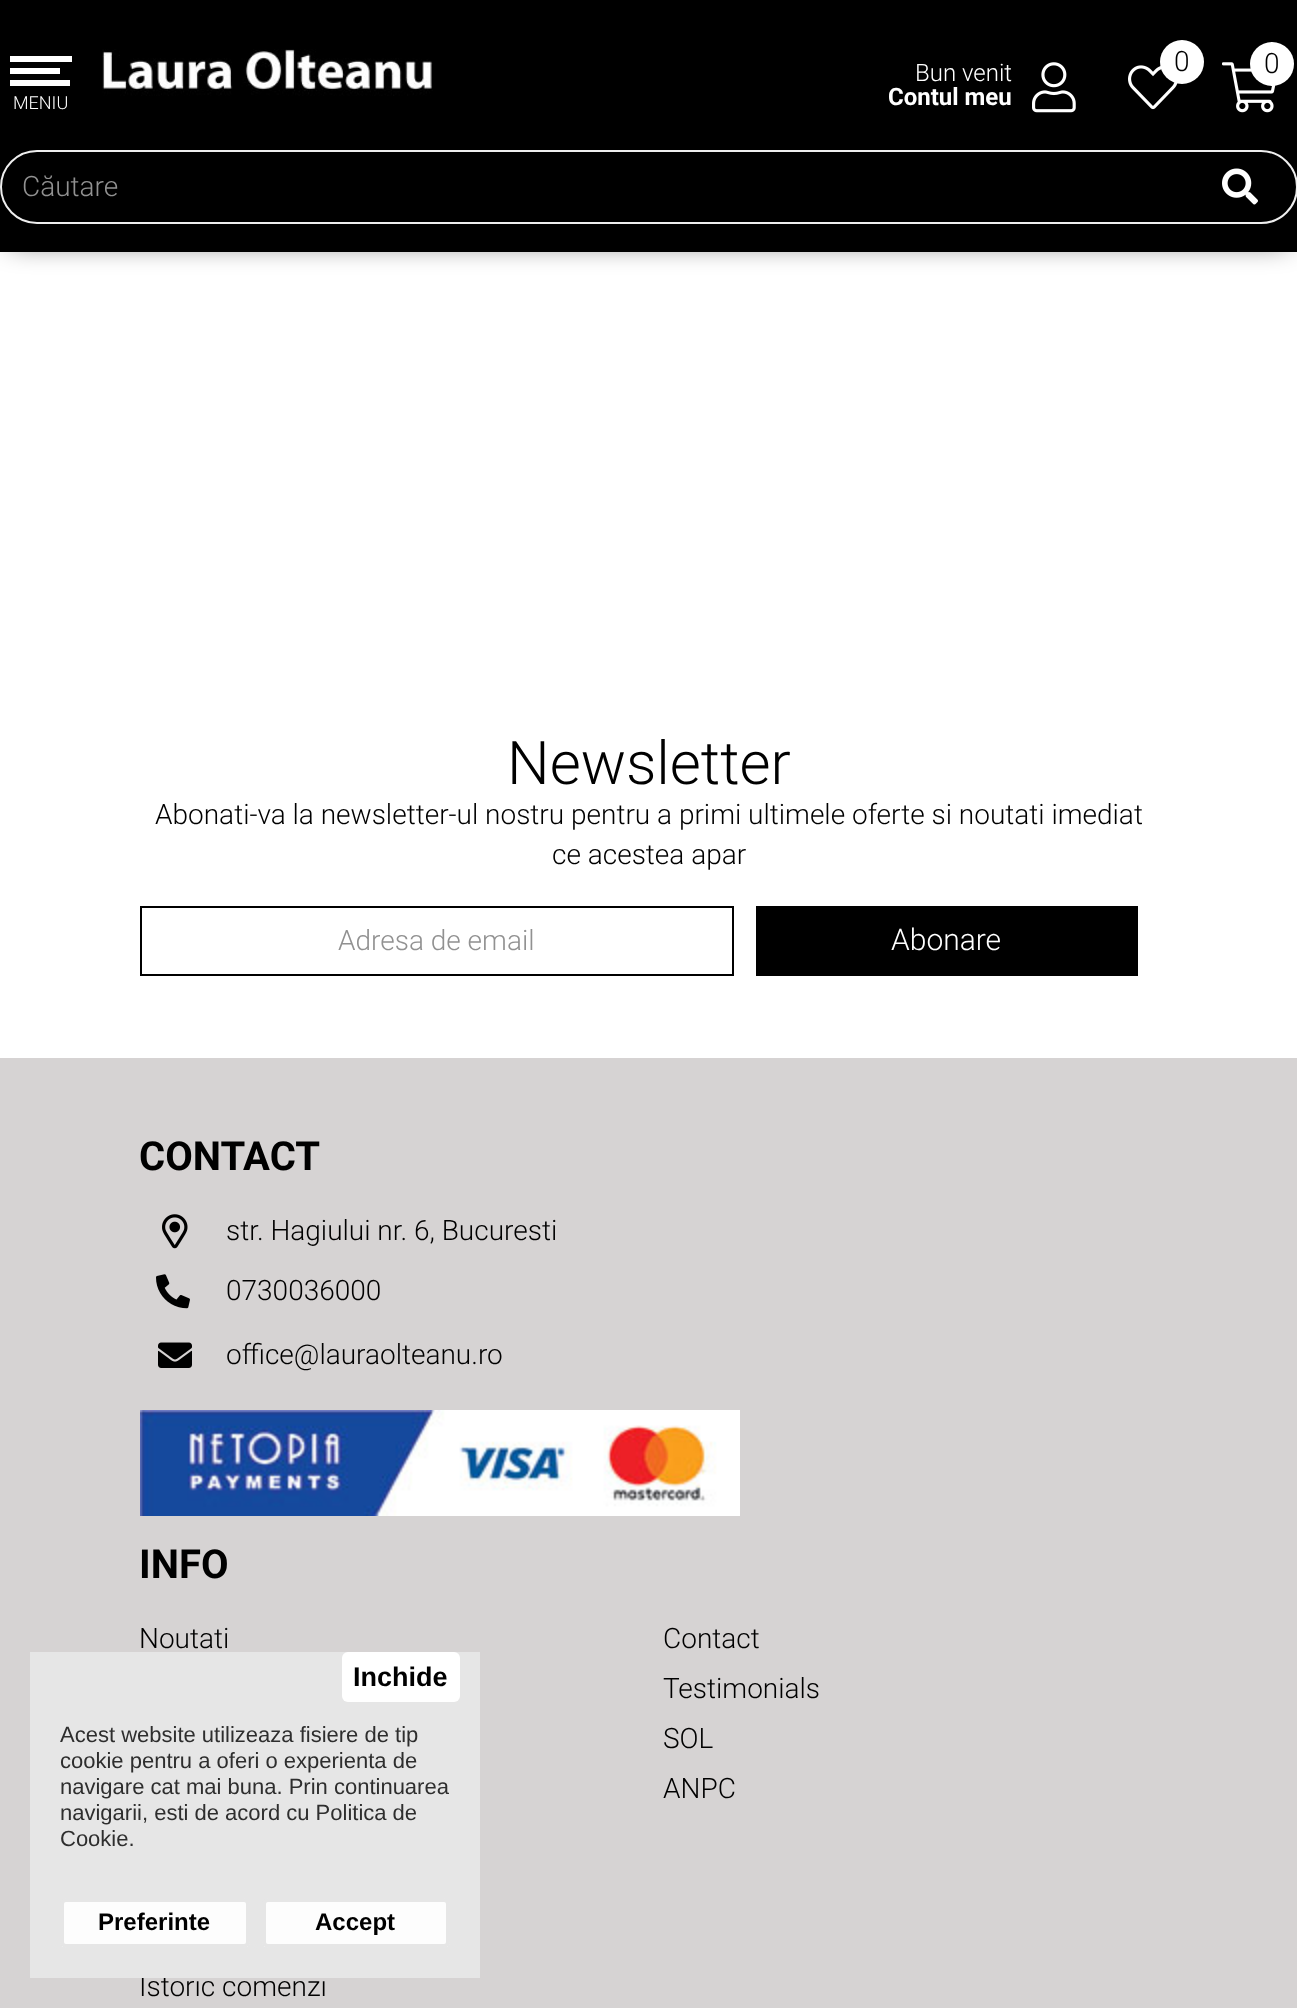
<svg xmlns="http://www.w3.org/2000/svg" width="1297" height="2008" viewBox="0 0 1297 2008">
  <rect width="100%" height="100%" fill="#fff"/>
  <path d="M10 10h1278v232H10z" fill="#000000ad" filter="blur(14px)"/>
  <path d="M0 0h1297v252H0z" fill="#000"/>
  <image x="102" y="49" width="331" height="47" href="img/1.png"/>
  <path d="M10 56h62v6H10z" fill="#fff"/>
  <path d="M10 68h50v6H10z" fill="#fff"/>
  <path d="M10 80h60v6H10z" fill="#fff"/>
  <image x="1032" y="62" width="44" height="51" href="img/2.png"/>
  <image x="1128" y="65" width="50" height="45" href="img/3.png"/>
  <circle cx="1182" cy="62" r="22" fill="#fff"/>
  <image x="1222" y="62" width="54" height="51" href="img/4.png"/>
  <circle cx="1272" cy="64" r="22" fill="#fff"/>
  <rect x="1" y="151" width="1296" height="72" rx="36" fill="none" stroke="#eee" stroke-width="2"/>
  <image x="1222" y="168" width="36" height="37" href="img/5.png"/>
  <path d="M141 907h592v68H141z" fill="none" stroke="#000" stroke-width="2"/>
  <path d="M756 906h382v70H756z" fill="#000"/>
  <path d="M0 1058h1297v950H0z" fill="#d6d3d3"/>
  <image x="162" y="1214" width="26" height="35" href="img/6.png"/>
  <image x="156" y="1274" width="34" height="35" href="img/7.png"/>
  <image x="158" y="1342" width="34" height="26" href="img/8.png"/>
  <image x="140" y="1410" width="600" height="106" href="img/9.png"/>
  <text x="13" y="109" font-family="Roboto" font-size="18" font-weight="300" fill="#fff">MENIU</text>
  <text x="915" y="81" font-family="Roboto" font-size="24" font-weight="300" fill="#fff">Bun venit</text>
  <text x="888" y="105" font-family="Roboto" font-size="24" font-weight="bold" fill="#fff">Contul meu</text>
  <g font-family="Roboto" font-size="28" font-weight="300" fill="#000">
    <text x="1174" y="71">0</text>
    <text x="1264" y="73">0</text>
  </g>
  <text x="22" y="196" font-family="Roboto" font-size="28" font-weight="300" fill="#919191">Căutare</text>
  <text x="507" y="784" font-family="Roboto" font-size="60" font-weight="300" fill="#000">Newsletter</text>
  <g font-family="Roboto" font-size="28" font-weight="300" fill="#000">
    <text x="155" y="824">Abonati-va la newsletter-ul nostru pentru a primi ultimele oferte si noutati imediat</text>
    <text x="552" y="864">ce acestea apar</text>
  </g>
  <text x="338" y="950" font-family="Roboto" font-size="28" font-weight="300" fill="#919191">Adresa de email</text>
  <text x="891" y="950" font-family="Roboto" font-size="30" font-weight="300" fill="#fff">Abonare</text>
  <text x="139" y="1170" font-family="Roboto" font-size="40" font-weight="bold" fill="#000">CONTACT</text>
  <g font-family="Roboto" font-size="28" font-weight="300" fill="#000">
    <text x="226" y="1240">str. Hagiului nr. 6, Bucuresti</text>
    <text x="226" y="1300">0730036000</text>
    <text x="226" y="1364">office@lauraolteanu.ro</text>
  </g>
  <text x="139" y="1578" font-family="Roboto" font-size="40" font-weight="bold" fill="#000">INFO</text>
  <g font-family="Roboto" font-size="28" font-weight="300" fill="#000">
    <text x="139" y="1648">Noutati</text>
    <text x="663" y="1648">Contact</text>
    <text x="663" y="1698">Testimonials</text>
    <text x="663" y="1748">SOL</text>
    <text x="663" y="1798">ANPC</text>
    <text x="139" y="1996">Istoric comenzi</text>
  </g>
  <path d="M30 1652h450v326H30z" fill="#e6e6e6"/>
  <rect x="342" y="1652" width="118" height="50" rx="6" fill="#fff"/>
  <text x="353" y="1686" font-family="Liberation Sans" font-size="27" font-weight="bold" fill="#000">Inchide</text>
  <rect x="60" y="1898" width="190" height="50" rx="6" fill="#fdfdfd"/>
  <rect x="62" y="1900" width="186" height="46" rx="4" fill="none" stroke="#00000017" stroke-width="4"/>
  <text x="98" y="1930" font-family="Liberation Sans" font-size="24" font-weight="bold" fill="#000">Preferinte</text>
  <rect x="262" y="1898" width="188" height="50" rx="6" fill="#fdfdfd"/>
  <rect x="264" y="1900" width="184" height="46" rx="4" fill="none" stroke="#00000017" stroke-width="4"/>
  <text x="315" y="1930" font-family="Liberation Sans" font-size="24" font-weight="bold" fill="#000">Accept</text>
  <g font-family="Liberation Sans" font-size="22" fill="#2e2e2e">
    <text x="60" y="1742">Acest website utilizeaza fisiere de tip</text>
    <text x="60" y="1768">cookie pentru a oferi o experienta de</text>
    <text x="60" y="1794">navigare cat mai buna. Prin continuarea</text>
    <text x="60" y="1820">navigarii, esti de acord cu Politica de</text>
    <text x="60" y="1846">Cookie.</text>
  </g>
</svg>
